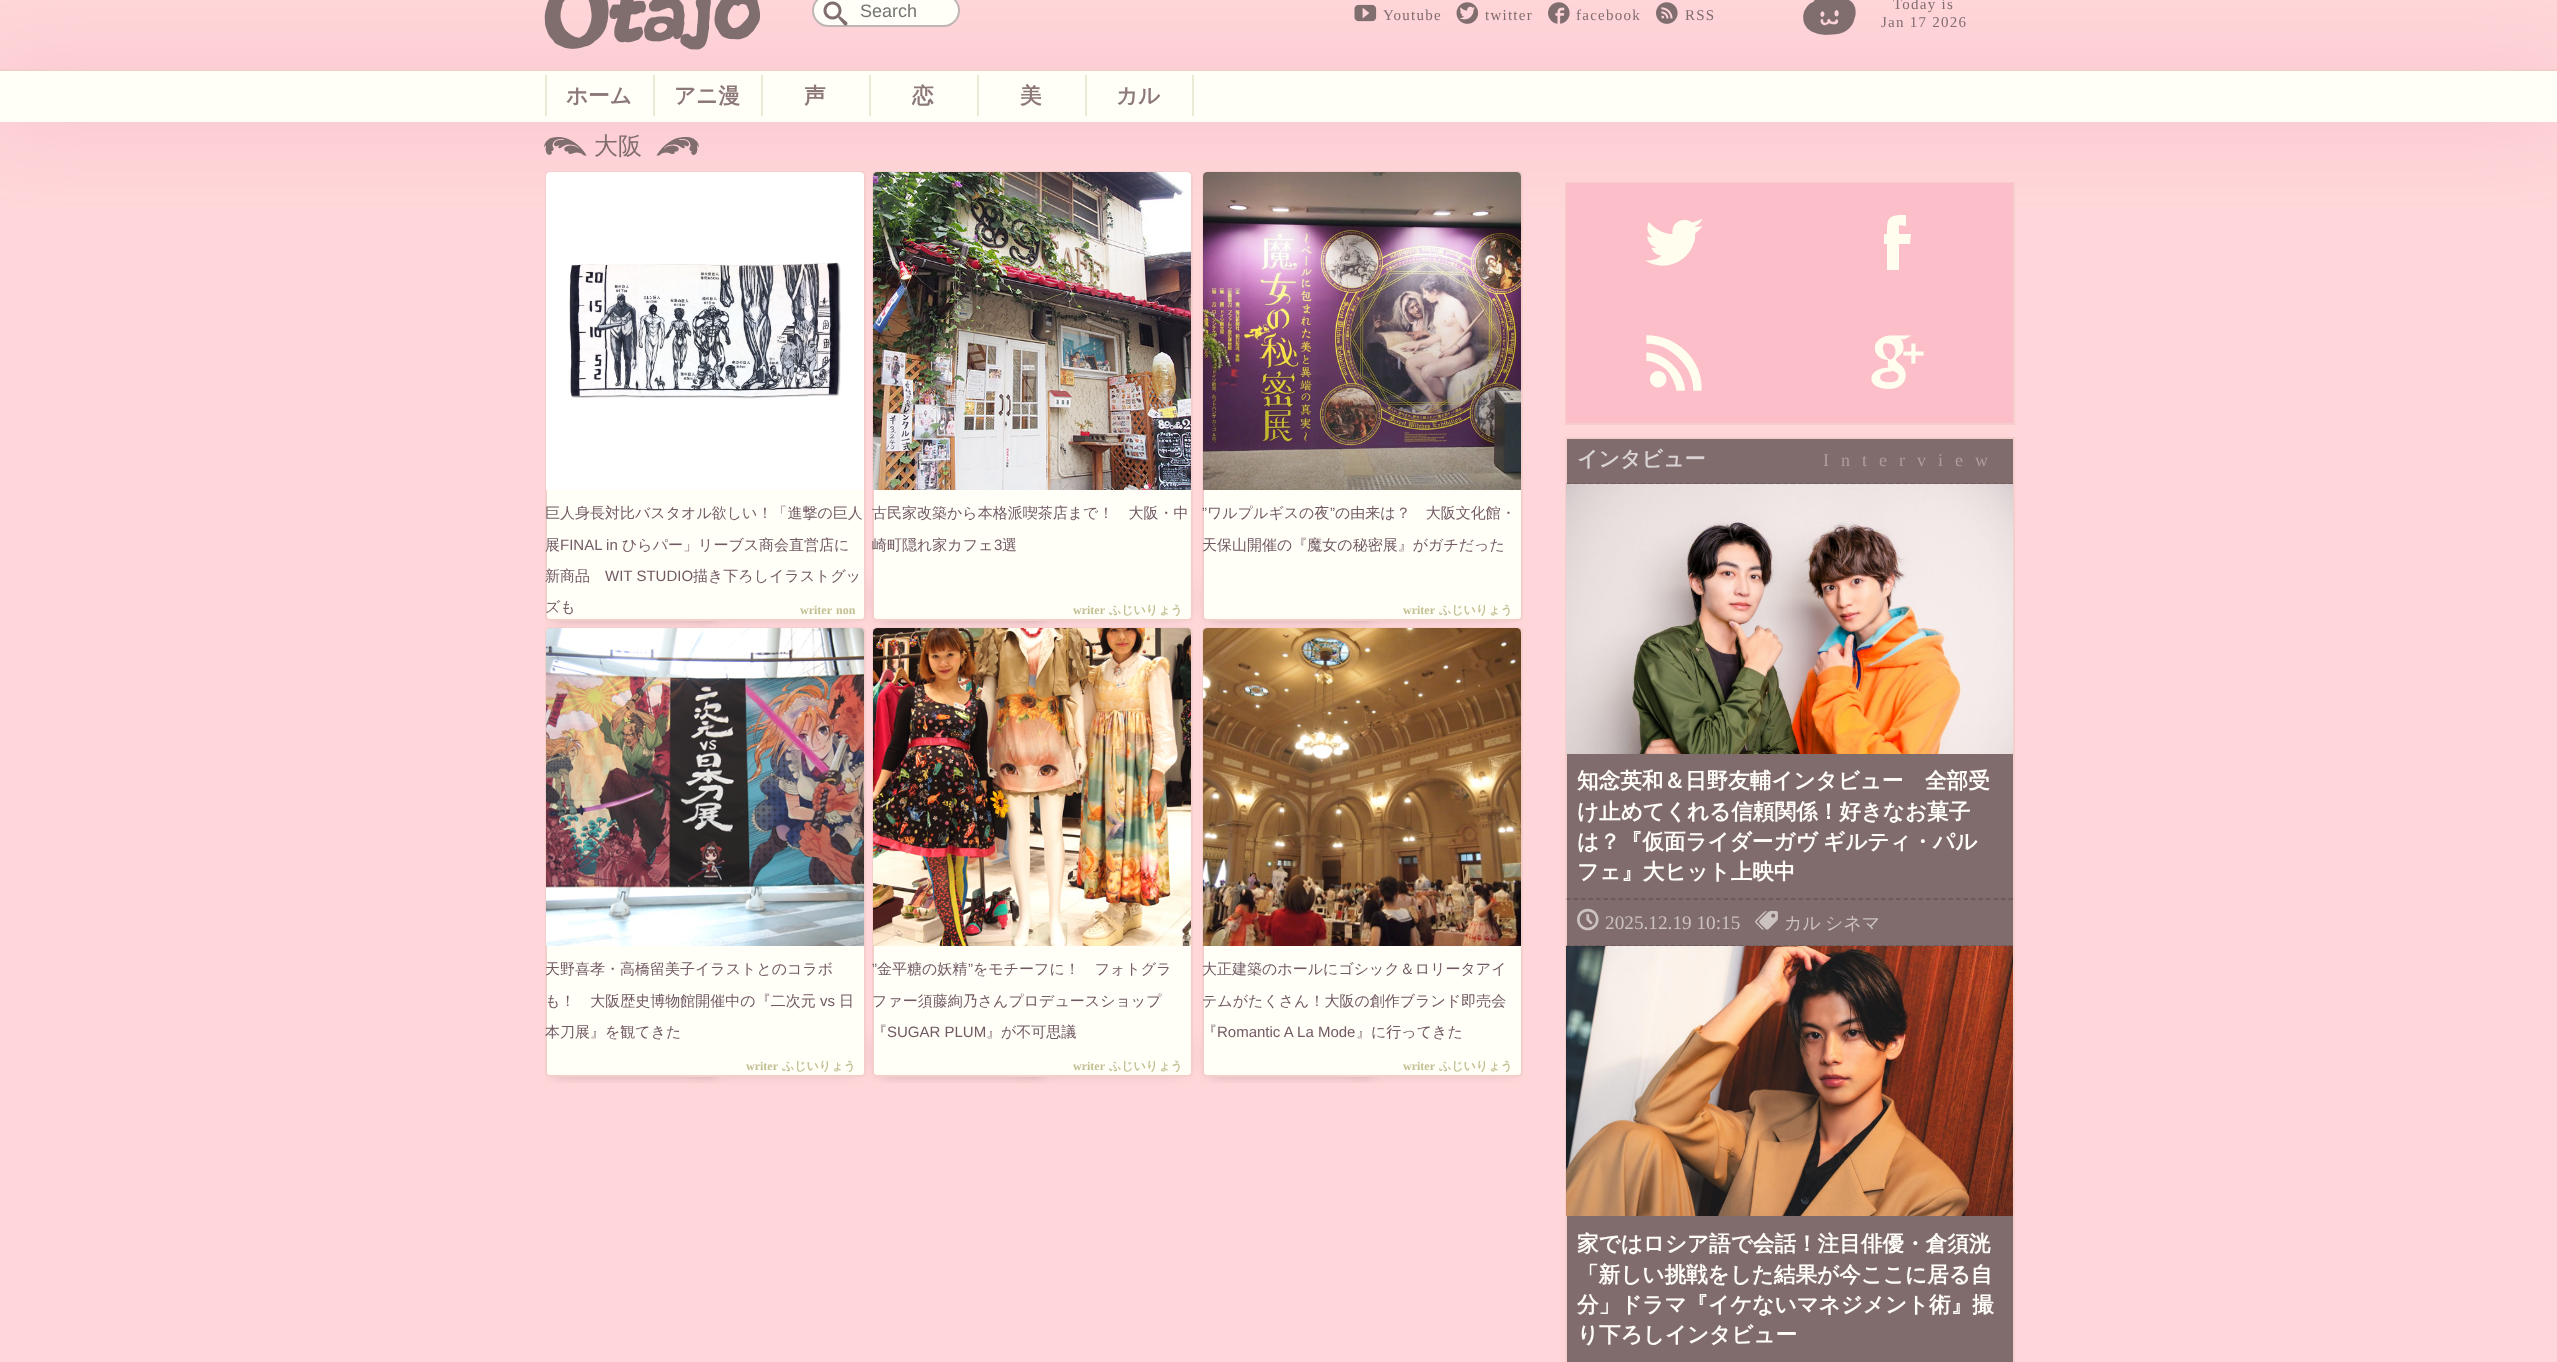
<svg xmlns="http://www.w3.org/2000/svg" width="2557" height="1362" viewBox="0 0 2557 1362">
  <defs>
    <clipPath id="clip1"><path d="M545 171h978v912H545z"/></clipPath>
  </defs>
  <rect width="100%" height="100%" fill="#ffd6d9"/>
  <path d="M1566 183h448v241H1566z" fill="none" stroke="#f5cecb" stroke-width="2"/>
  <path d="M0 71h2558v51H0z" fill="#eca0bf66" filter="blur(37.5px)"/>
  <path d="M0 69h2557v2H0z" fill="#f5cecb"/>
  <image x="544" y="0" width="216" height="50" href="img/1.png"/>
  <rect x="812" y="-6" width="148" height="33" rx="16.5" fill="#fffef7"/>
  <rect x="813" y="-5" width="146" height="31" rx="15.5" fill="none" stroke="#806c6d80" stroke-width="2"/>
  <image x="823" y="1" width="25" height="25" href="img/2.png"/>
  <image x="1354" y="4" width="23" height="18" href="img/3.png"/>
  <image x="1456" y="2" width="23" height="22" href="img/4.png"/>
  <image x="1548" y="2" width="22" height="22" href="img/5.png"/>
  <image x="1656" y="2" width="22" height="22" href="img/6.png"/>
  <image x="1803" y="0" width="53" height="35" href="img/7.png"/>
  <path d="M0 71h2557v51H0z" fill="#fffef7"/>
  <path d="M545 75h2v41H545z" fill="#ebead4"/>
  <path d="M653 75h2v41H653z" fill="#ebead4"/>
  <path d="M761 75h2v41H761z" fill="#ebead4"/>
  <path d="M869 75h2v41H869z" fill="#ebead4"/>
  <path d="M977 75h2v41H977z" fill="#ebead4"/>
  <path d="M1086 116H1194V75H1192V116Z" fill="#ebead4"/>
  <path d="M1085 75h2v41H1085z" fill="#ebead4"/>
  <g clip-path="url(#clip1)">
    <path d="M555 585h159v30H555z" fill="#806d6ee6" filter="blur(7.5px)"/>
  </g>
  <path d="M696 582h159v30H696z" fill="#806d6ee6" filter="blur(7.5px)"/>
  <path d="M882 585h159v30H882z" fill="#806d6ee6" filter="blur(7.5px)"/>
  <rect x="546" y="172" width="319" height="448" rx="4" fill="#fffef7" stroke="#f5cecb" stroke-width="2"/>
  <image x="546" y="172" width="318" height="318" href="img/8.png"/>
  <path d="M1023 582h159v30H1023z" fill="#806d6ee6" filter="blur(7.5px)"/>
  <path d="M1212 585h159v30H1212z" fill="#806d6ee6" filter="blur(7.5px)"/>
  <rect x="873" y="172" width="319" height="448" rx="4" fill="#fffef7" stroke="#f5cecb" stroke-width="2"/>
  <image x="873" y="172" width="318" height="318" href="img/9.png"/>
  <g clip-path="url(#clip1)">
    <path d="M1353 582h159v30H1353z" fill="#806d6ee6" filter="blur(7.5px)"/>
  </g>
  <rect x="1203" y="172" width="319" height="448" rx="4" fill="#fffef7" stroke="#f5cecb" stroke-width="2"/>
  <image x="1202" y="172" width="319" height="318" href="img/10.png"/>
  <g clip-path="url(#clip1)">
    <path d="M555 1041h159v30H555z" fill="#806d6ee6" filter="blur(7.5px)"/>
  </g>
  <path d="M696 1038h159v30H696z" fill="#806d6ee6" filter="blur(7.5px)"/>
  <g clip-path="url(#clip1)">
    <path d="M882 1041h159v30H882z" fill="#806d6ee6" filter="blur(7.5px)"/>
  </g>
  <rect x="546" y="628" width="319" height="448" rx="4" fill="#fffef7" stroke="#f5cecb" stroke-width="2"/>
  <image x="546" y="628" width="318" height="318" href="img/11.png"/>
  <path d="M1023 1038h159v30H1023z" fill="#806d6ee6" filter="blur(7.5px)"/>
  <g clip-path="url(#clip1)">
    <path d="M1212 1041h159v30H1212z" fill="#806d6ee6" filter="blur(7.5px)"/>
  </g>
  <rect x="873" y="628" width="319" height="448" rx="4" fill="#fffef7" stroke="#f5cecb" stroke-width="2"/>
  <image x="872" y="628" width="319" height="318" href="img/12.png"/>
  <g clip-path="url(#clip1)">
    <path d="M1353 1038h159v30H1353z" fill="#806d6ee6" filter="blur(7.5px)"/>
  </g>
  <rect x="1203" y="628" width="319" height="448" rx="4" fill="#fffef7" stroke="#f5cecb" stroke-width="2"/>
  <image x="1203" y="628" width="318" height="318" href="img/13.png"/>
  <path d="M1566 183h447v240H1566z" fill="#fcbec9"/>
  <image x="1645" y="219" width="58" height="47" href="img/14.png"/>
  <path d="M1910 244H1899V270H1887V244H1884V234H1887C1887 217 1888 215 1906 215V226C1897 226 1899 222 1899 234H1911Z" fill="#fffeee"/>
  <image x="1646" y="335" width="56" height="56" href="img/15.png"/>
  <image x="1871" y="335" width="53" height="54" href="img/16.png"/>
  <path d="M1566 438h448v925H1566z" fill="#806b6d" stroke="#f5cecb" stroke-width="2"/>
  <path d="M1566 484H2013" fill="none" stroke="#00000033" stroke-width="1.5" stroke-dasharray="4.5 3"/>
  <image x="1566" y="484" width="447" height="270" href="img/17.png"/>
  <path d="M1566 899H2013" fill="none" stroke="#00000033" stroke-width="1.5" stroke-dasharray="4.5 3"/>
  <image x="1755" y="910" width="23" height="20" href="img/18.png"/>
  <path d="M1566 946H2013" fill="none" stroke="#00000033" stroke-width="1.5" stroke-dasharray="4.5 3"/>
  <image x="1566" y="946" width="447" height="270" href="img/19.png"/>
  <text x="860" y="17" font-family="Liberation Sans" font-size="18" fill="#757575">Search</text>
  <g font-family="Liberation Serif" font-size="15" letter-spacing="1.25" fill="#806d6e">
    <text x="1383" y="20">Youtube</text>
    <text x="1485" y="20">twitter</text>
    <text x="1576" y="20">facebook</text>
    <text x="1685" y="20">RSS</text>
    <text x="1893" y="9">Today is</text>
    <text x="1881" y="27">Jan 17 2026</text>
  </g>
  <g font-family="WenQuanYi Zen Hei" font-size="21.6" font-weight="bold" fill="#8d7878">
    <text x="566" y="103">ホーム</text>
    <text x="674" y="103">アニ漫</text>
    <text x="804" y="103">声</text>
    <text x="912" y="103">恋</text>
    <text x="1020" y="103">美</text>
    <text x="1116" y="103">カル</text>
  </g>
  <text x="544" y="154" font-family="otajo" font-size="43" fill="#806d6e">（</text>
  <text x="594" y="154" font-family="WenQuanYi Zen Hei" font-size="24" font-weight="500" fill="#806d6e">大阪</text>
  <text x="656" y="154" font-family="otajo" font-size="43" fill="#806d6e">）</text>
  <g font-family="WenQuanYi Zen Hei" font-size="15" font-weight="500" fill="#725a64">
    <text x="545" y="518">巨人身長対比バスタオル欲しい！「進撃の巨人</text>
    <text x="545" y="550">展</text>
  </g>
  <text x="560" y="550" font-family="Liberation Sans" font-size="15" fill="#725a64">FINAL in</text>
  <g font-family="WenQuanYi Zen Hei" font-size="15" font-weight="500" fill="#725a64">
    <text x="622" y="550">ひらパー」リーブス商会直営店に</text>
    <text x="545" y="581">新商品</text>
  </g>
  <text x="605" y="581" font-family="Liberation Sans" font-size="15" fill="#725a64">WIT STUDIO</text>
  <g font-family="WenQuanYi Zen Hei" font-size="15" font-weight="500" fill="#725a64">
    <text x="693" y="581">描き下ろしイラストグッ</text>
    <text x="545" y="612">ズも</text>
  </g>
  <g font-family="Liberation Serif" font-size="12" font-weight="bold" fill="#c1be91">
    <text x="800" y="614">writer</text>
    <text x="836" y="614">non</text>
  </g>
  <g font-family="WenQuanYi Zen Hei" font-size="15" font-weight="500" fill="#725a64">
    <text x="872" y="518">古民家改築から本格派喫茶店まで！　大阪・中</text>
    <text x="872" y="550">崎町隠れ家カフェ</text>
  </g>
  <text x="994" y="550" font-family="Liberation Sans" font-size="15" fill="#725a64">3</text>
  <text x="1002" y="550" font-family="WenQuanYi Zen Hei" font-size="15" font-weight="500" fill="#725a64">選</text>
  <text x="1073" y="614" font-family="Liberation Serif" font-size="12" font-weight="bold" fill="#c1be91">writer</text>
  <text x="1109" y="614" font-family="WenQuanYi Zen Hei" font-size="12" font-weight="bold" fill="#c1be91">ふじいりょう</text>
  <text x="1202" y="518" font-family="Liberation Sans" font-size="15" fill="#725a64">”</text>
  <text x="1207" y="518" font-family="WenQuanYi Zen Hei" font-size="15" font-weight="500" fill="#725a64">ワルプルギスの夜</text>
  <text x="1330" y="518" font-family="Liberation Sans" font-size="15" fill="#725a64">”</text>
  <g font-family="WenQuanYi Zen Hei" font-size="15" font-weight="500" fill="#725a64">
    <text x="1335" y="518">の由来は？　大阪文化館・</text>
    <text x="1202" y="550">天保山開催の『魔女の秘密展』がガチだった</text>
  </g>
  <text x="1403" y="614" font-family="Liberation Serif" font-size="12" font-weight="bold" fill="#c1be91">writer</text>
  <text x="1439" y="614" font-family="WenQuanYi Zen Hei" font-size="12" font-weight="bold" fill="#c1be91">ふじいりょう</text>
  <g font-family="WenQuanYi Zen Hei" font-size="15" font-weight="500" fill="#725a64">
    <text x="545" y="974">天野喜孝・高橋留美子イラストとのコラボ</text>
    <text x="545" y="1006">も！　大阪歴史博物館開催中の『二次元</text>
  </g>
  <text x="820" y="1006" font-family="Liberation Sans" font-size="15" fill="#725a64">vs</text>
  <g font-family="WenQuanYi Zen Hei" font-size="15" font-weight="500" fill="#725a64">
    <text x="839" y="1006">日</text>
    <text x="545" y="1037">本刀展』を観てきた</text>
  </g>
  <text x="746" y="1070" font-family="Liberation Serif" font-size="12" font-weight="bold" fill="#c1be91">writer</text>
  <text x="782" y="1070" font-family="WenQuanYi Zen Hei" font-size="12" font-weight="bold" fill="#c1be91">ふじいりょう</text>
  <text x="872" y="974" font-family="Liberation Sans" font-size="15" fill="#725a64">”</text>
  <text x="877" y="974" font-family="WenQuanYi Zen Hei" font-size="15" font-weight="500" fill="#725a64">金平糖の妖精</text>
  <text x="968" y="974" font-family="Liberation Sans" font-size="15" fill="#725a64">”</text>
  <g font-family="WenQuanYi Zen Hei" font-size="15" font-weight="500" fill="#725a64">
    <text x="973" y="974">をモチーフに！　フォトグラ</text>
    <text x="872" y="1006">ファー須藤絢乃さんプロデュースショップ</text>
    <text x="872" y="1037">『</text>
  </g>
  <text x="887" y="1037" font-family="Liberation Sans" font-size="15" fill="#725a64">SUGAR PLUM</text>
  <text x="986" y="1037" font-family="WenQuanYi Zen Hei" font-size="15" font-weight="500" fill="#725a64">』が不可思議</text>
  <text x="1073" y="1070" font-family="Liberation Serif" font-size="12" font-weight="bold" fill="#c1be91">writer</text>
  <text x="1109" y="1070" font-family="WenQuanYi Zen Hei" font-size="12" font-weight="bold" fill="#c1be91">ふじいりょう</text>
  <g font-family="WenQuanYi Zen Hei" font-size="15" font-weight="500" fill="#725a64">
    <text x="1202" y="974">大正建築のホールにゴシック＆ロリータアイ</text>
    <text x="1202" y="1006">テムがたくさん！大阪の創作ブランド即売会</text>
    <text x="1202" y="1037">『</text>
  </g>
  <text x="1217" y="1037" font-family="Liberation Sans" font-size="15" fill="#725a64">Romantic A La Mode</text>
  <text x="1356" y="1037" font-family="WenQuanYi Zen Hei" font-size="15" font-weight="500" fill="#725a64">』に行ってきた</text>
  <text x="1403" y="1070" font-family="Liberation Serif" font-size="12" font-weight="bold" fill="#c1be91">writer</text>
  <text x="1439" y="1070" font-family="WenQuanYi Zen Hei" font-size="12" font-weight="bold" fill="#c1be91">ふじいりょう</text>
  <text x="1577" y="466" font-family="WenQuanYi Zen Hei" font-size="21" font-weight="bold" fill="#d9d3d3">インタビュー</text>
  <text x="1823" y="466" font-family="Liberation Serif" font-size="18" letter-spacing="12" fill="#b39c9d">Interview</text>
  <g font-family="WenQuanYi Zen Hei" font-size="21.6" font-weight="bold" fill="#fffef7">
    <text x="1577" y="788">知念英和＆日野友輔インタビュー　全部受</text>
    <text x="1577" y="819">け止めてくれる信頼関係！好きなお菓子</text>
    <text x="1577" y="849" word-spacing="-1">は？『仮面ライダーガヴ ギルティ・パル</text>
    <text x="1577" y="879">フェ』大ヒット上映中</text>
  </g>
  <text x="1577" y="929" font-family="otajo" font-size="21.6" fill="#ccc3c0">@</text>
  <text x="1605" y="929" font-family="Liberation Serif" font-size="19.25" fill="#ccc3c0">2025.12.19 10:15</text>
  <g font-family="WenQuanYi Zen Hei" font-size="18" font-weight="500" fill="#ccc3c0">
    <text x="1784" y="929">カル</text>
    <text x="1825" y="929">シネマ</text>
  </g>
  <g font-family="WenQuanYi Zen Hei" font-size="21.6" font-weight="bold" fill="#fffef7">
    <text x="1577" y="1251">家ではロシア語で会話！注目俳優・倉須洸</text>
    <text x="1577" y="1282">「新しい挑戦をした結果が今ここに居る自</text>
    <text x="1577" y="1312">分」ドラマ『イケないマネジメント術』撮</text>
    <text x="1577" y="1342">り下ろしインタビュー</text>
  </g>
</svg>
